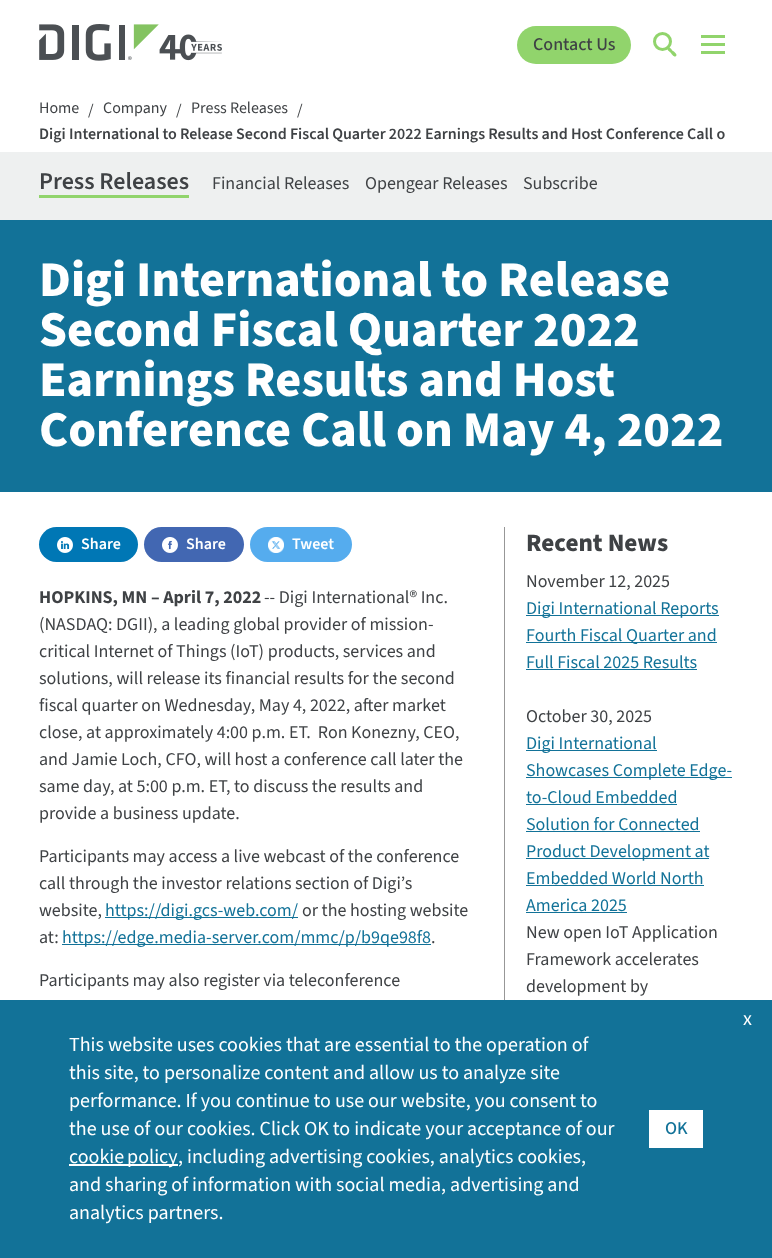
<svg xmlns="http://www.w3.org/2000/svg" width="772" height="1258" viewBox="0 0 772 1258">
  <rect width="100%" height="100%" fill="#fff"/>
  <image x="39" y="24" width="120" height="37" href="img/1.png"/>
  <image x="159" y="34" width="63" height="27" href="img/2.png"/>
  <rect x="517" y="26" width="114" height="38" rx="19" fill="#91d46c"/>
  <circle cx="662.5" cy="41.5" r="8" fill="none" stroke="#91d46c" stroke-width="3"/>
  <path d="M667.5 47.5C669.5 46 672 50 673 51C674 51.5 678 54.5 676 56C674.5 58 671.5 54 671 53C670 52 666 49.5 667.5 47.5Z" fill="#91d46c"/>
  <path d="M701 35h24v3H701z" fill="#91d46c"/>
  <path d="M701 43h24v3H701z" fill="#91d46c"/>
  <path d="M701 51h24v3H701z" fill="#91d46c"/>
  <path d="M0 152h772v68H0z" fill="#eef0f0"/>
  <path d="M39 195h150v3H39z" fill="#91d46c"/>
  <path d="M0 220h772v272H0z" fill="#127298"/>
  <rect x="39" y="527" width="99" height="35" rx="17.5" fill="#0077b5"/>
  <image x="57" y="537" width="16" height="16" href="img/3.png"/>
  <rect x="144" y="527" width="100" height="35" rx="17.5" fill="#4267b2"/>
  <image x="162" y="537" width="16" height="16" href="img/4.png"/>
  <rect x="250" y="527" width="102" height="35" rx="17.5" fill="#55acee"/>
  <image x="268" y="537" width="16" height="16" href="img/5.png"/>
  <path d="M105 917h193v1H105z" fill="#127298"/>
  <path d="M62 944h369v1H62z" fill="#127298"/>
  <path d="M504 527h1v473H504z" fill="#979797"/>
  <path d="M526 615h193v1H526z" fill="#127298"/>
  <path d="M526 642h191v1H526z" fill="#127298"/>
  <path d="M526 669h171v1H526z" fill="#127298"/>
  <path d="M526 750h131v1H526z" fill="#127298"/>
  <path d="M526 777h206v1H526z" fill="#127298"/>
  <path d="M526 804h151v1H526z" fill="#127298"/>
  <path d="M526 831h174v1H526z" fill="#127298"/>
  <path d="M526 858h183v1H526z" fill="#127298"/>
  <path d="M526 885h178v1H526z" fill="#127298"/>
  <path d="M526 912h101v1H526z" fill="#127298"/>
  <path d="M0 1000h772v258H0z" fill="#127298"/>
  <path d="M69 1164h109v2H69z" fill="#fff"/>
  <path d="M649 1110h54v38H649z" fill="#fff"/>
  <text x="533" y="50" font-family="'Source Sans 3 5'" font-size="18" font-weight="200" fill="#3f4245">Contact Us</text>
  <g font-family="'Source Sans 3'" font-size="16" font-weight="200" fill="#3f4245">
    <text x="39" y="113">Home</text>
    <text x="88" y="115">/</text>
    <text x="103" y="113">Company</text>
    <text x="176" y="115">/</text>
    <text x="191" y="113">Press Releases</text>
    <text x="297" y="115">/</text>
  </g>
  <text x="39" y="139" font-family="'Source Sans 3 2'" font-size="16" font-weight="200" fill="#3f4245">Digi International to Release Second Fiscal Quarter 2022 Earnings Results and Host Conference Call o</text>
  <text x="39" y="189" font-family="'Source Sans 3 2'" font-size="24" font-weight="200" fill="#3f4245">Press Releases</text>
  <g font-family="'Source Sans 3'" font-size="18" font-weight="200" fill="#3f4245">
    <text x="212" y="189">Financial Releases</text>
    <text x="365" y="189">Opengear Releases</text>
    <text x="523" y="189">Subscribe</text>
  </g>
  <g font-family="'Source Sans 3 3'" font-size="50" font-weight="200" fill="#fff">
    <text x="39" y="296">Digi International to Release</text>
    <text x="39" y="346">Second Fiscal Quarter 2022</text>
    <text x="39" y="396">Earnings Results and Host</text>
    <text x="39" y="446">Conference Call on May 4, 2022</text>
  </g>
  <g font-family="'Source Sans 3 2'" font-size="16" font-weight="200" fill="#fff">
    <text x="81" y="549">Share</text>
    <text x="186" y="549">Share</text>
    <text x="292" y="549">Tweet</text>
  </g>
  <text x="39" y="603" font-family="'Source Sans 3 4'" font-size="18" font-weight="200" fill="#3f4245">HOPKINS, MN – April 7, 2022</text>
  <g font-family="'Source Sans 3'" font-size="18" font-weight="200" fill="#3f4245">
    <text x="264" y="603">-- Digi International® Inc.</text>
    <text x="39" y="630">(NASDAQ: DGII), a leading global provider of mission-</text>
    <text x="39" y="657">critical Internet of Things (IoT) products, services and</text>
    <text x="39" y="684">solutions, will release its financial results for the second</text>
    <text x="39" y="711">fiscal quarter on Wednesday, May 4, 2022, after market</text>
    <text x="39" y="738" xml:space="preserve">close, at approximately 4:00 p.m. ET.  Ron Konezny, CEO,</text>
    <text x="39" y="765">and Jamie Loch, CFO, will host a conference call later the</text>
    <text x="39" y="792">same day, at 5:00 p.m. ET, to discuss the results and</text>
    <text x="39" y="819">provide a business update.</text>
    <text x="39" y="862">Participants may access a live webcast of the conference</text>
    <text x="39" y="889">call through the investor relations section of Digi’s</text>
    <text x="39" y="916">website,</text>
  </g>
  <text x="105" y="916" font-family="'Source Sans 3'" font-size="18" font-weight="200" fill="#127298">https://digi.gcs-web.com/</text>
  <g font-family="'Source Sans 3'" font-size="18" font-weight="200" fill="#3f4245">
    <text x="302" y="916">or the hosting website</text>
    <text x="39" y="943">at:</text>
  </g>
  <text x="62" y="943" font-family="'Source Sans 3'" font-size="18" font-weight="200" fill="#127298">https://edge.media-server.com/mmc/p/b9qe98f8</text>
  <g font-family="'Source Sans 3'" font-size="18" font-weight="200" fill="#3f4245">
    <text x="431" y="943">.</text>
    <text x="39" y="986">Participants may also register via teleconference</text>
  </g>
  <text x="526" y="551" font-family="'Source Sans 3 3'" font-size="25" font-weight="200" fill="#3f4245">Recent News</text>
  <text x="526" y="587" font-family="'Source Sans 3'" font-size="18" font-weight="200" fill="#3f4245">November 12, 2025</text>
  <g font-family="'Source Sans 3'" font-size="18" font-weight="200" fill="#127298">
    <text x="526" y="614">Digi International Reports</text>
    <text x="526" y="641">Fourth Fiscal Quarter and</text>
    <text x="526" y="668">Full Fiscal 2025 Results</text>
  </g>
  <text x="526" y="722" font-family="'Source Sans 3'" font-size="18" font-weight="200" fill="#3f4245">October 30, 2025</text>
  <g font-family="'Source Sans 3'" font-size="18" font-weight="200" fill="#127298">
    <text x="526" y="749">Digi International</text>
    <text x="526" y="776">Showcases Complete Edge-</text>
    <text x="526" y="803">to-Cloud Embedded</text>
    <text x="526" y="830">Solution for Connected</text>
    <text x="526" y="857">Product Development at</text>
    <text x="526" y="884">Embedded World North</text>
    <text x="526" y="911">America 2025</text>
  </g>
  <g font-family="'Source Sans 3'" font-size="18" font-weight="200" fill="#3f4245">
    <text x="526" y="938">New open IoT Application</text>
    <text x="526" y="965">Framework accelerates</text>
    <text x="526" y="992">development by</text>
  </g>
  <g font-family="'Source Sans 3'" font-size="20" font-weight="200" fill="#fff">
    <text x="743" y="1025">x</text>
    <text x="69" y="1051">This website uses cookies that are essential to the operation of</text>
    <text x="69" y="1079">this site, to personalize content and allow us to analyze site</text>
    <text x="69" y="1107">performance. If you continue to use our website, you consent to</text>
    <text x="69" y="1135">the use of our cookies. Click OK to indicate your acceptance of our</text>
    <text x="69" y="1163" word-spacing="-1">cookie policy</text>
    <text x="178" y="1163">, including advertising cookies, analytics cookies,</text>
    <text x="69" y="1191">and sharing of information with social media, advertising and</text>
    <text x="69" y="1219">analytics partners.</text>
  </g>
  <text x="665" y="1134" font-family="'Source Sans 3 5'" font-size="18" font-weight="200" fill="#127298">OK</text>
</svg>
